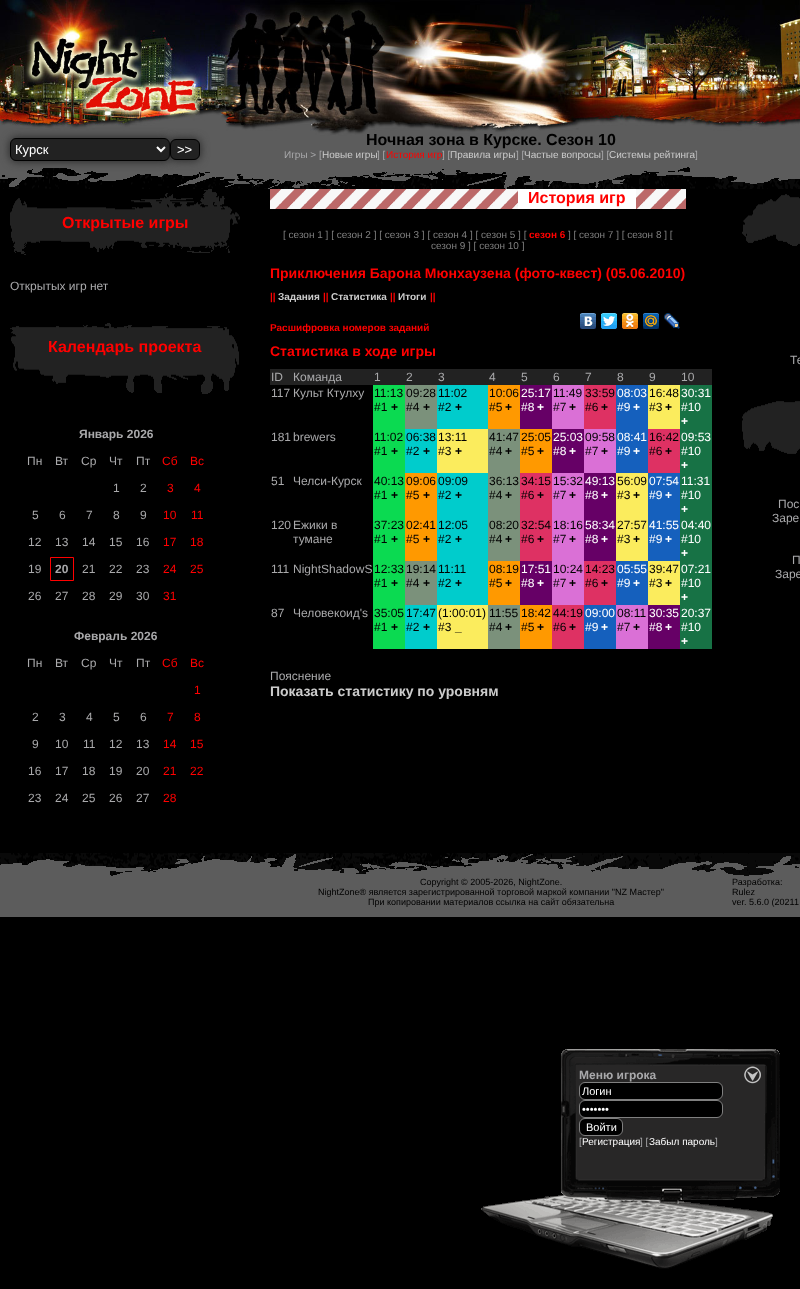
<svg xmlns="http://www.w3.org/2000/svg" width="800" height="1289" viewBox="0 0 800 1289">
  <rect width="100%" height="100%" fill="#000"/>
  <image x="0" y="0" width="800" height="138" href="img/1.png"/>
  <image x="0" y="0" width="200" height="126" href="img/2.png"/>
  <image x="0" y="166" width="800" height="23" href="img/4.png"/>
  <image x="32" y="168" width="11" height="5" href="img/3.png"/>
  <image x="10" y="189" width="230" height="66" href="img/5.png"/>
  <image x="10" y="323" width="229" height="71" href="img/6.png"/>
  <path d="M50.5 557.5h23v23H50.5z" fill="none" stroke="#f00"/>
  <image x="270" y="189" width="416" height="20" href="img/7.png"/>
  <path d="M518 189h118v20H518z" fill="#fff"/>
  <image x="580" y="313" width="16" height="16" href="img/8.png"/>
  <image x="601" y="313" width="16" height="16" href="img/9.png"/>
  <image x="622" y="313" width="16" height="16" href="img/10.png"/>
  <image x="643" y="313" width="16" height="16" href="img/11.png"/>
  <image x="664" y="313" width="16" height="16" href="img/12.png"/>
  <path d="M270 369h442v16H270z" fill="#222"/>
  <path d="M373 385h32v264H373z" fill="#0bda51"/>
  <path d="M405 385h32v44H405z" fill="#7b917b"/>
  <path d="M437 385h51v44H437z" fill="#0cc"/>
  <path d="M488 385h32v44H488z" fill="#f90"/>
  <path d="M520 385h32v44H520z" fill="#606"/>
  <path d="M552 385h32v44H552z" fill="#da70d6"/>
  <path d="M584 385h32v44H584z" fill="#de3163"/>
  <path d="M616 385h32v88H616z" fill="#1560bd"/>
  <path d="M648 385h32v44H648z" fill="#fbec5d"/>
  <path d="M680 385h32v264H680z" fill="#177245"/>
  <path d="M405 429h32v44H405z" fill="#0cc"/>
  <path d="M437 429h51v44H437z" fill="#fbec5d"/>
  <path d="M488 429h32v132H488z" fill="#7b917b"/>
  <path d="M520 429h32v44H520z" fill="#f90"/>
  <path d="M552 429h32v44H552z" fill="#606"/>
  <path d="M584 429h32v44H584z" fill="#da70d6"/>
  <path d="M648 429h32v44H648z" fill="#de3163"/>
  <path d="M405 473h32v88H405z" fill="#f90"/>
  <path d="M437 473h51v132H437z" fill="#0cc"/>
  <path d="M520 473h32v88H520z" fill="#de3163"/>
  <path d="M552 473h32v132H552z" fill="#da70d6"/>
  <path d="M584 473h32v88H584z" fill="#606"/>
  <path d="M616 473h32v88H616z" fill="#fbec5d"/>
  <path d="M648 473h32v88H648z" fill="#1560bd"/>
  <path d="M405 561h32v44H405z" fill="#7b917b"/>
  <path d="M488 561h32v44H488z" fill="#f90"/>
  <path d="M520 561h32v44H520z" fill="#606"/>
  <path d="M584 561h32v44H584z" fill="#de3163"/>
  <path d="M616 561h32v44H616z" fill="#1560bd"/>
  <path d="M648 561h32v44H648z" fill="#fbec5d"/>
  <path d="M405 605h32v44H405z" fill="#0cc"/>
  <path d="M437 605h51v44H437z" fill="#fbec5d"/>
  <path d="M488 605h32v44H488z" fill="#7b917b"/>
  <path d="M520 605h32v44H520z" fill="#f90"/>
  <path d="M552 605h32v44H552z" fill="#de3163"/>
  <path d="M584 605h32v44H584z" fill="#1560bd"/>
  <path d="M616 605h32v44H616z" fill="#da70d6"/>
  <path d="M648 605h32v44H648z" fill="#606"/>
  <image x="742" y="194" width="58" height="52" href="img/13.png"/>
  <image x="742" y="401" width="58" height="53" href="img/14.png"/>
  <image x="481" y="1049" width="299" height="220" href="img/15.png"/>
  <image x="744" y="1066" width="17" height="18" href="img/16.png"/>
  <rect x="579.5" y="1082.5" width="143" height="17" rx="5.5" fill="#000" stroke="#808080"/>
  <rect x="579.5" y="1100.5" width="143" height="17" rx="5.5" fill="#000" stroke="#808080"/>
  <rect x="579.5" y="1118.5" width="43" height="17" rx="5.5" fill="#000" stroke="#808080"/>
  <image x="0" y="853" width="800" height="24" href="img/17.png"/>
  <path d="M0 138h800v28H0z" fill="#5c5c5c"/>
  <rect x="10" y="138" width="160" height="23" rx="6" fill="#222" filter="blur(5px)"/>
  <rect x="10.5" y="138.5" width="159" height="22" rx="5.5" fill="#222" stroke="#000"/>
  <path d="M157 147L161 151L165 147" fill="none" stroke="#fff" stroke-width="2"/>
  <rect x="170" y="139" width="30" height="21" rx="6" fill="#222" filter="blur(5px)"/>
  <rect x="170.5" y="139.5" width="29" height="20" rx="5.5" fill="#222" stroke="#000"/>
  <path d="M0 877h800v40H0z" fill="#5c5c5c"/>
  <image x="432" y="169" width="10" height="4" href="img/18.png"/>
  <text x="366" y="145" font-family="Liberation Sans" font-size="16" font-weight="bold" fill="#000">Ночная зона в Курске. Сезон 10</text>
  <text x="284" y="158" font-family="Liberation Sans" font-size="10" fill="#a9a9ab">Игры &gt; [</text>
  <text x="322" y="158" font-family="Liberation Sans" font-size="10" fill="#ccc">Новые игры</text>
  <text x="377" y="158" font-family="Liberation Sans" font-size="10" fill="#a9a9ab">] [</text>
  <text x="386" y="158" font-family="Liberation Sans" font-size="10" fill="#f00">История игр</text>
  <text x="442" y="158" font-family="Liberation Sans" font-size="10" fill="#a9a9ab">] [</text>
  <text x="450" y="158" font-family="Liberation Sans" font-size="10" fill="#ccc">Правила игры</text>
  <text x="516" y="158" font-family="Liberation Sans" font-size="10" fill="#a9a9ab">] [</text>
  <text x="524" y="158" font-family="Liberation Sans" font-size="10" fill="#ccc">Частые вопросы</text>
  <text x="601" y="158" font-family="Liberation Sans" font-size="10" fill="#a9a9ab">] [</text>
  <text x="609" y="158" font-family="Liberation Sans" font-size="10" fill="#ccc">Системы рейтинга</text>
  <text x="695" y="158" font-family="Liberation Sans" font-size="10" fill="#a9a9ab">]</text>
  <text x="62" y="228" font-family="Liberation Sans" font-size="16" font-weight="bold" fill="#f00">Открытые игры</text>
  <text x="10" y="290" font-family="Liberation Sans" font-size="12" fill="#a9a9ab">Открытых игр нет</text>
  <text x="48" y="352" font-family="Liberation Sans" font-size="16" font-weight="bold" fill="#f00">Календарь проекта</text>
  <text x="79" y="438" font-family="Liberation Sans" font-size="12" font-weight="bold" fill="#a9a9ab">Январь 2026</text>
  <g font-family="Liberation Sans" font-size="12" fill="#a9a9ab">
    <text x="27" y="465">Пн</text>
    <text x="55" y="465">Вт</text>
    <text x="81" y="465">Ср</text>
    <text x="109" y="465">Чт</text>
    <text x="136" y="465">Пт</text>
  </g>
  <g font-family="Liberation Sans" font-size="12" fill="#f00">
    <text x="162" y="465">Сб</text>
    <text x="190" y="465">Вс</text>
  </g>
  <g font-family="Liberation Sans" font-size="12" fill="#a9a9ab">
    <text x="113" y="492">1</text>
    <text x="140" y="492">2</text>
  </g>
  <g font-family="Liberation Sans" font-size="12" fill="#f00">
    <text x="167" y="492">3</text>
    <text x="194" y="492">4</text>
  </g>
  <g font-family="Liberation Sans" font-size="12" fill="#a9a9ab">
    <text x="32" y="519">5</text>
    <text x="59" y="519">6</text>
    <text x="86" y="519">7</text>
    <text x="113" y="519">8</text>
    <text x="140" y="519">9</text>
  </g>
  <g font-family="Liberation Sans" font-size="12" fill="#f00">
    <text x="163" y="519">10</text>
    <text x="191" y="519">11</text>
  </g>
  <g font-family="Liberation Sans" font-size="12" fill="#a9a9ab">
    <text x="28" y="546">12</text>
    <text x="55" y="546">13</text>
    <text x="82" y="546">14</text>
    <text x="109" y="546">15</text>
    <text x="136" y="546">16</text>
  </g>
  <g font-family="Liberation Sans" font-size="12" fill="#f00">
    <text x="163" y="546">17</text>
    <text x="190" y="546">18</text>
  </g>
  <text x="28" y="573" font-family="Liberation Sans" font-size="12" fill="#a9a9ab">19</text>
  <text x="55" y="573" font-family="Liberation Sans" font-size="12" font-weight="bold" fill="#a9a9ab">20</text>
  <g font-family="Liberation Sans" font-size="12" fill="#a9a9ab">
    <text x="82" y="573">21</text>
    <text x="109" y="573">22</text>
    <text x="136" y="573">23</text>
  </g>
  <g font-family="Liberation Sans" font-size="12" fill="#f00">
    <text x="163" y="573">24</text>
    <text x="190" y="573">25</text>
  </g>
  <g font-family="Liberation Sans" font-size="12" fill="#a9a9ab">
    <text x="28" y="600">26</text>
    <text x="55" y="600">27</text>
    <text x="82" y="600">28</text>
    <text x="109" y="600">29</text>
    <text x="136" y="600">30</text>
  </g>
  <text x="163" y="600" font-family="Liberation Sans" font-size="12" fill="#f00">31</text>
  <text x="74" y="640" font-family="Liberation Sans" font-size="12" font-weight="bold" fill="#a9a9ab">Февраль 2026</text>
  <g font-family="Liberation Sans" font-size="12" fill="#a9a9ab">
    <text x="27" y="667">Пн</text>
    <text x="55" y="667">Вт</text>
    <text x="81" y="667">Ср</text>
    <text x="109" y="667">Чт</text>
    <text x="136" y="667">Пт</text>
  </g>
  <g font-family="Liberation Sans" font-size="12" fill="#f00">
    <text x="162" y="667">Сб</text>
    <text x="190" y="667">Вс</text>
    <text x="194" y="694">1</text>
  </g>
  <g font-family="Liberation Sans" font-size="12" fill="#a9a9ab">
    <text x="32" y="721">2</text>
    <text x="59" y="721">3</text>
    <text x="86" y="721">4</text>
    <text x="113" y="721">5</text>
    <text x="140" y="721">6</text>
  </g>
  <g font-family="Liberation Sans" font-size="12" fill="#f00">
    <text x="167" y="721">7</text>
    <text x="194" y="721">8</text>
  </g>
  <g font-family="Liberation Sans" font-size="12" fill="#a9a9ab">
    <text x="32" y="748">9</text>
    <text x="55" y="748">10</text>
    <text x="83" y="748">11</text>
    <text x="109" y="748">12</text>
    <text x="136" y="748">13</text>
  </g>
  <g font-family="Liberation Sans" font-size="12" fill="#f00">
    <text x="163" y="748">14</text>
    <text x="190" y="748">15</text>
  </g>
  <g font-family="Liberation Sans" font-size="12" fill="#a9a9ab">
    <text x="28" y="775">16</text>
    <text x="55" y="775">17</text>
    <text x="82" y="775">18</text>
    <text x="109" y="775">19</text>
    <text x="136" y="775">20</text>
  </g>
  <g font-family="Liberation Sans" font-size="12" fill="#f00">
    <text x="163" y="775">21</text>
    <text x="190" y="775">22</text>
  </g>
  <g font-family="Liberation Sans" font-size="12" fill="#a9a9ab">
    <text x="28" y="802">23</text>
    <text x="55" y="802">24</text>
    <text x="82" y="802">25</text>
    <text x="109" y="802">26</text>
    <text x="136" y="802">27</text>
  </g>
  <text x="163" y="802" font-family="Liberation Sans" font-size="12" fill="#f00">28</text>
  <text x="528" y="203" font-family="Liberation Sans" font-size="16" font-weight="bold" fill="#f00">История игр</text>
  <text x="283" y="238" font-family="Liberation Sans" font-size="10" fill="#808080">[ сезон 1 ] [ сезон 2 ] [ сезон 3 ] [ сезон 4 ] [ сезон 5 ] [</text>
  <text x="529" y="238" font-family="Liberation Sans" font-size="10" font-weight="bold" fill="#f00">сезон 6</text>
  <g font-family="Liberation Sans" font-size="10" fill="#808080">
    <text x="568" y="238">] [ сезон 7 ] [ сезон 8 ] [</text>
    <text x="431" y="249">сезон 9 ] [ сезон 10 ]</text>
  </g>
  <text x="270" y="278" font-family="Liberation Sans" font-size="14" font-weight="bold" fill="#f00">Приключения Барона Мюнхаузена (фото-квест) (05.06.2010)</text>
  <text x="270" y="300" font-family="Liberation Sans" font-size="10" font-weight="bold" fill="#f00">||</text>
  <text x="278" y="300" font-family="Liberation Sans" font-size="10" font-weight="bold" fill="#ccc">Задания</text>
  <text x="323" y="300" font-family="Liberation Sans" font-size="10" font-weight="bold" fill="#f00">||</text>
  <text x="331" y="300" font-family="Liberation Sans" font-size="10" font-weight="bold" fill="#ccc">Статистика</text>
  <text x="390" y="300" font-family="Liberation Sans" font-size="10" font-weight="bold" fill="#f00">||</text>
  <text x="398" y="300" font-family="Liberation Sans" font-size="10" font-weight="bold" fill="#ccc">Итоги</text>
  <g font-family="Liberation Sans" font-size="10" font-weight="bold" fill="#f00">
    <text x="430" y="300">||</text>
    <text x="270" y="331">Расшифровка номеров заданий</text>
  </g>
  <text x="270" y="356" font-family="Liberation Sans" font-size="14" font-weight="bold" fill="#f00">Статистика в ходе игры</text>
  <g font-family="Liberation Sans" font-size="12" fill="#a9a9ab">
    <text x="271" y="381">ID</text>
    <text x="293" y="381">Команда</text>
    <text x="374" y="381">1</text>
    <text x="406" y="381">2</text>
    <text x="438" y="381">3</text>
    <text x="489" y="381">4</text>
    <text x="521" y="381">5</text>
    <text x="553" y="381">6</text>
    <text x="585" y="381">7</text>
    <text x="617" y="381">8</text>
    <text x="649" y="381">9</text>
    <text x="681" y="381">10</text>
    <text x="271" y="397">117</text>
    <text x="293" y="397">Культ Ктулху</text>
  </g>
  <g font-family="Liberation Sans" font-size="12" fill="#000">
    <text x="374" y="397">11:13</text>
    <text x="374" y="411">#1</text>
  </g>
  <text x="391" y="411" font-family="Liberation Sans" font-size="12" font-weight="bold" fill="#000">+</text>
  <g font-family="Liberation Sans" font-size="12" fill="#000">
    <text x="406" y="397">09:28</text>
    <text x="406" y="411">#4</text>
  </g>
  <text x="423" y="411" font-family="Liberation Sans" font-size="12" font-weight="bold" fill="#000">+</text>
  <g font-family="Liberation Sans" font-size="12" fill="#000">
    <text x="438" y="397">11:02</text>
    <text x="438" y="411">#2</text>
  </g>
  <text x="455" y="411" font-family="Liberation Sans" font-size="12" font-weight="bold" fill="#000">+</text>
  <g font-family="Liberation Sans" font-size="12" fill="#000">
    <text x="489" y="397">10:06</text>
    <text x="489" y="411">#5</text>
  </g>
  <text x="505" y="411" font-family="Liberation Sans" font-size="12" font-weight="bold" fill="#000">+</text>
  <g font-family="Liberation Sans" font-size="12" fill="#fff">
    <text x="521" y="397">25:17</text>
    <text x="521" y="411">#8</text>
  </g>
  <text x="537" y="411" font-family="Liberation Sans" font-size="12" font-weight="bold" fill="#fff">+</text>
  <g font-family="Liberation Sans" font-size="12" fill="#000">
    <text x="553" y="397">11:49</text>
    <text x="553" y="411">#7</text>
  </g>
  <text x="569" y="411" font-family="Liberation Sans" font-size="12" font-weight="bold" fill="#000">+</text>
  <g font-family="Liberation Sans" font-size="12" fill="#000">
    <text x="585" y="397">33:59</text>
    <text x="585" y="411">#6</text>
  </g>
  <text x="601" y="411" font-family="Liberation Sans" font-size="12" font-weight="bold" fill="#000">+</text>
  <g font-family="Liberation Sans" font-size="12" fill="#fff">
    <text x="617" y="397">08:03</text>
    <text x="617" y="411">#9</text>
  </g>
  <text x="633" y="411" font-family="Liberation Sans" font-size="12" font-weight="bold" fill="#fff">+</text>
  <g font-family="Liberation Sans" font-size="12" fill="#000">
    <text x="649" y="397">16:48</text>
    <text x="649" y="411">#3</text>
  </g>
  <text x="665" y="411" font-family="Liberation Sans" font-size="12" font-weight="bold" fill="#000">+</text>
  <g font-family="Liberation Sans" font-size="12" fill="#fff">
    <text x="681" y="397">30:31</text>
    <text x="681" y="411">#10</text>
  </g>
  <text x="681" y="425" font-family="Liberation Sans" font-size="12" font-weight="bold" fill="#fff">+</text>
  <g font-family="Liberation Sans" font-size="12" fill="#a9a9ab">
    <text x="271" y="441">181</text>
    <text x="293" y="441">brewers</text>
  </g>
  <g font-family="Liberation Sans" font-size="12" fill="#000">
    <text x="374" y="441">11:02</text>
    <text x="374" y="455">#1</text>
  </g>
  <text x="391" y="455" font-family="Liberation Sans" font-size="12" font-weight="bold" fill="#000">+</text>
  <g font-family="Liberation Sans" font-size="12" fill="#000">
    <text x="406" y="441">06:38</text>
    <text x="406" y="455">#2</text>
  </g>
  <text x="423" y="455" font-family="Liberation Sans" font-size="12" font-weight="bold" fill="#000">+</text>
  <g font-family="Liberation Sans" font-size="12" fill="#000">
    <text x="438" y="441">13:11</text>
    <text x="438" y="455">#3</text>
  </g>
  <text x="455" y="455" font-family="Liberation Sans" font-size="12" font-weight="bold" fill="#000">+</text>
  <g font-family="Liberation Sans" font-size="12" fill="#000">
    <text x="489" y="441">41:47</text>
    <text x="489" y="455">#4</text>
  </g>
  <text x="505" y="455" font-family="Liberation Sans" font-size="12" font-weight="bold" fill="#000">+</text>
  <g font-family="Liberation Sans" font-size="12" fill="#000">
    <text x="521" y="441">25:05</text>
    <text x="521" y="455">#5</text>
  </g>
  <text x="537" y="455" font-family="Liberation Sans" font-size="12" font-weight="bold" fill="#000">+</text>
  <g font-family="Liberation Sans" font-size="12" fill="#fff">
    <text x="553" y="441">25:03</text>
    <text x="553" y="455">#8</text>
  </g>
  <text x="569" y="455" font-family="Liberation Sans" font-size="12" font-weight="bold" fill="#fff">+</text>
  <g font-family="Liberation Sans" font-size="12" fill="#000">
    <text x="585" y="441">09:58</text>
    <text x="585" y="455">#7</text>
  </g>
  <text x="601" y="455" font-family="Liberation Sans" font-size="12" font-weight="bold" fill="#000">+</text>
  <g font-family="Liberation Sans" font-size="12" fill="#fff">
    <text x="617" y="441">08:41</text>
    <text x="617" y="455">#9</text>
  </g>
  <text x="633" y="455" font-family="Liberation Sans" font-size="12" font-weight="bold" fill="#fff">+</text>
  <g font-family="Liberation Sans" font-size="12" fill="#000">
    <text x="649" y="441">16:42</text>
    <text x="649" y="455">#6</text>
  </g>
  <text x="665" y="455" font-family="Liberation Sans" font-size="12" font-weight="bold" fill="#000">+</text>
  <g font-family="Liberation Sans" font-size="12" fill="#fff">
    <text x="681" y="441">09:53</text>
    <text x="681" y="455">#10</text>
  </g>
  <text x="681" y="469" font-family="Liberation Sans" font-size="12" font-weight="bold" fill="#fff">+</text>
  <g font-family="Liberation Sans" font-size="12" fill="#a9a9ab">
    <text x="271" y="485">51</text>
    <text x="293" y="485">Челси-Курск</text>
  </g>
  <g font-family="Liberation Sans" font-size="12" fill="#000">
    <text x="374" y="485">40:13</text>
    <text x="374" y="499">#1</text>
  </g>
  <text x="391" y="499" font-family="Liberation Sans" font-size="12" font-weight="bold" fill="#000">+</text>
  <g font-family="Liberation Sans" font-size="12" fill="#000">
    <text x="406" y="485">09:06</text>
    <text x="406" y="499">#5</text>
  </g>
  <text x="423" y="499" font-family="Liberation Sans" font-size="12" font-weight="bold" fill="#000">+</text>
  <g font-family="Liberation Sans" font-size="12" fill="#000">
    <text x="438" y="485">09:09</text>
    <text x="438" y="499">#2</text>
  </g>
  <text x="455" y="499" font-family="Liberation Sans" font-size="12" font-weight="bold" fill="#000">+</text>
  <g font-family="Liberation Sans" font-size="12" fill="#000">
    <text x="489" y="485">36:13</text>
    <text x="489" y="499">#4</text>
  </g>
  <text x="505" y="499" font-family="Liberation Sans" font-size="12" font-weight="bold" fill="#000">+</text>
  <g font-family="Liberation Sans" font-size="12" fill="#000">
    <text x="521" y="485">34:15</text>
    <text x="521" y="499">#6</text>
  </g>
  <text x="537" y="499" font-family="Liberation Sans" font-size="12" font-weight="bold" fill="#000">+</text>
  <g font-family="Liberation Sans" font-size="12" fill="#000">
    <text x="553" y="485">15:32</text>
    <text x="553" y="499">#7</text>
  </g>
  <text x="569" y="499" font-family="Liberation Sans" font-size="12" font-weight="bold" fill="#000">+</text>
  <g font-family="Liberation Sans" font-size="12" fill="#fff">
    <text x="585" y="485">49:13</text>
    <text x="585" y="499">#8</text>
  </g>
  <text x="601" y="499" font-family="Liberation Sans" font-size="12" font-weight="bold" fill="#fff">+</text>
  <g font-family="Liberation Sans" font-size="12" fill="#000">
    <text x="617" y="485">56:09</text>
    <text x="617" y="499">#3</text>
  </g>
  <text x="633" y="499" font-family="Liberation Sans" font-size="12" font-weight="bold" fill="#000">+</text>
  <g font-family="Liberation Sans" font-size="12" fill="#fff">
    <text x="649" y="485">07:54</text>
    <text x="649" y="499">#9</text>
  </g>
  <text x="665" y="499" font-family="Liberation Sans" font-size="12" font-weight="bold" fill="#fff">+</text>
  <g font-family="Liberation Sans" font-size="12" fill="#fff">
    <text x="681" y="485">11:31</text>
    <text x="681" y="499">#10</text>
  </g>
  <text x="681" y="513" font-family="Liberation Sans" font-size="12" font-weight="bold" fill="#fff">+</text>
  <g font-family="Liberation Sans" font-size="12" fill="#a9a9ab">
    <text x="271" y="529">120</text>
    <text x="293" y="529">Ежики в</text>
    <text x="293" y="543">тумане</text>
  </g>
  <g font-family="Liberation Sans" font-size="12" fill="#000">
    <text x="374" y="529">37:23</text>
    <text x="374" y="543">#1</text>
  </g>
  <text x="391" y="543" font-family="Liberation Sans" font-size="12" font-weight="bold" fill="#000">+</text>
  <g font-family="Liberation Sans" font-size="12" fill="#000">
    <text x="406" y="529">02:41</text>
    <text x="406" y="543">#5</text>
  </g>
  <text x="423" y="543" font-family="Liberation Sans" font-size="12" font-weight="bold" fill="#000">+</text>
  <g font-family="Liberation Sans" font-size="12" fill="#000">
    <text x="438" y="529">12:05</text>
    <text x="438" y="543">#2</text>
  </g>
  <text x="455" y="543" font-family="Liberation Sans" font-size="12" font-weight="bold" fill="#000">+</text>
  <g font-family="Liberation Sans" font-size="12" fill="#000">
    <text x="489" y="529">08:20</text>
    <text x="489" y="543">#4</text>
  </g>
  <text x="505" y="543" font-family="Liberation Sans" font-size="12" font-weight="bold" fill="#000">+</text>
  <g font-family="Liberation Sans" font-size="12" fill="#000">
    <text x="521" y="529">32:54</text>
    <text x="521" y="543">#6</text>
  </g>
  <text x="537" y="543" font-family="Liberation Sans" font-size="12" font-weight="bold" fill="#000">+</text>
  <g font-family="Liberation Sans" font-size="12" fill="#000">
    <text x="553" y="529">18:16</text>
    <text x="553" y="543">#7</text>
  </g>
  <text x="569" y="543" font-family="Liberation Sans" font-size="12" font-weight="bold" fill="#000">+</text>
  <g font-family="Liberation Sans" font-size="12" fill="#fff">
    <text x="585" y="529">58:34</text>
    <text x="585" y="543">#8</text>
  </g>
  <text x="601" y="543" font-family="Liberation Sans" font-size="12" font-weight="bold" fill="#fff">+</text>
  <g font-family="Liberation Sans" font-size="12" fill="#000">
    <text x="617" y="529">27:57</text>
    <text x="617" y="543">#3</text>
  </g>
  <text x="633" y="543" font-family="Liberation Sans" font-size="12" font-weight="bold" fill="#000">+</text>
  <g font-family="Liberation Sans" font-size="12" fill="#fff">
    <text x="649" y="529">41:55</text>
    <text x="649" y="543">#9</text>
  </g>
  <text x="665" y="543" font-family="Liberation Sans" font-size="12" font-weight="bold" fill="#fff">+</text>
  <g font-family="Liberation Sans" font-size="12" fill="#fff">
    <text x="681" y="529">04:40</text>
    <text x="681" y="543">#10</text>
  </g>
  <text x="681" y="557" font-family="Liberation Sans" font-size="12" font-weight="bold" fill="#fff">+</text>
  <g font-family="Liberation Sans" font-size="12" fill="#a9a9ab">
    <text x="271" y="573">111</text>
    <text x="293" y="573">NightShadowS</text>
  </g>
  <g font-family="Liberation Sans" font-size="12" fill="#000">
    <text x="374" y="573">12:33</text>
    <text x="374" y="587">#1</text>
  </g>
  <text x="391" y="587" font-family="Liberation Sans" font-size="12" font-weight="bold" fill="#000">+</text>
  <g font-family="Liberation Sans" font-size="12" fill="#000">
    <text x="406" y="573">19:14</text>
    <text x="406" y="587">#4</text>
  </g>
  <text x="423" y="587" font-family="Liberation Sans" font-size="12" font-weight="bold" fill="#000">+</text>
  <g font-family="Liberation Sans" font-size="12" fill="#000">
    <text x="438" y="573">11:11</text>
    <text x="438" y="587">#2</text>
  </g>
  <text x="455" y="587" font-family="Liberation Sans" font-size="12" font-weight="bold" fill="#000">+</text>
  <g font-family="Liberation Sans" font-size="12" fill="#000">
    <text x="489" y="573">08:19</text>
    <text x="489" y="587">#5</text>
  </g>
  <text x="505" y="587" font-family="Liberation Sans" font-size="12" font-weight="bold" fill="#000">+</text>
  <g font-family="Liberation Sans" font-size="12" fill="#fff">
    <text x="521" y="573">17:51</text>
    <text x="521" y="587">#8</text>
  </g>
  <text x="537" y="587" font-family="Liberation Sans" font-size="12" font-weight="bold" fill="#fff">+</text>
  <g font-family="Liberation Sans" font-size="12" fill="#000">
    <text x="553" y="573">10:24</text>
    <text x="553" y="587">#7</text>
  </g>
  <text x="569" y="587" font-family="Liberation Sans" font-size="12" font-weight="bold" fill="#000">+</text>
  <g font-family="Liberation Sans" font-size="12" fill="#000">
    <text x="585" y="573">14:23</text>
    <text x="585" y="587">#6</text>
  </g>
  <text x="601" y="587" font-family="Liberation Sans" font-size="12" font-weight="bold" fill="#000">+</text>
  <g font-family="Liberation Sans" font-size="12" fill="#fff">
    <text x="617" y="573">05:55</text>
    <text x="617" y="587">#9</text>
  </g>
  <text x="633" y="587" font-family="Liberation Sans" font-size="12" font-weight="bold" fill="#fff">+</text>
  <g font-family="Liberation Sans" font-size="12" fill="#000">
    <text x="649" y="573">39:47</text>
    <text x="649" y="587">#3</text>
  </g>
  <text x="665" y="587" font-family="Liberation Sans" font-size="12" font-weight="bold" fill="#000">+</text>
  <g font-family="Liberation Sans" font-size="12" fill="#fff">
    <text x="681" y="573">07:21</text>
    <text x="681" y="587">#10</text>
  </g>
  <text x="681" y="601" font-family="Liberation Sans" font-size="12" font-weight="bold" fill="#fff">+</text>
  <g font-family="Liberation Sans" font-size="12" fill="#a9a9ab">
    <text x="271" y="617">87</text>
    <text x="293" y="617">Человекоид's</text>
  </g>
  <g font-family="Liberation Sans" font-size="12" fill="#000">
    <text x="374" y="617">35:05</text>
    <text x="374" y="631">#1</text>
  </g>
  <text x="391" y="631" font-family="Liberation Sans" font-size="12" font-weight="bold" fill="#000">+</text>
  <g font-family="Liberation Sans" font-size="12" fill="#000">
    <text x="406" y="617">17:47</text>
    <text x="406" y="631">#2</text>
  </g>
  <text x="423" y="631" font-family="Liberation Sans" font-size="12" font-weight="bold" fill="#000">+</text>
  <g font-family="Liberation Sans" font-size="12" fill="#000">
    <text x="438" y="617">(1:00:01)</text>
    <text x="438" y="631">#3</text>
  </g>
  <text x="455" y="631" font-family="Liberation Sans" font-size="12" font-weight="bold" fill="#000">_</text>
  <g font-family="Liberation Sans" font-size="12" fill="#000">
    <text x="489" y="617">11:55</text>
    <text x="489" y="631">#4</text>
  </g>
  <text x="505" y="631" font-family="Liberation Sans" font-size="12" font-weight="bold" fill="#000">+</text>
  <g font-family="Liberation Sans" font-size="12" fill="#000">
    <text x="521" y="617">18:42</text>
    <text x="521" y="631">#5</text>
  </g>
  <text x="537" y="631" font-family="Liberation Sans" font-size="12" font-weight="bold" fill="#000">+</text>
  <g font-family="Liberation Sans" font-size="12" fill="#000">
    <text x="553" y="617">44:19</text>
    <text x="553" y="631">#6</text>
  </g>
  <text x="569" y="631" font-family="Liberation Sans" font-size="12" font-weight="bold" fill="#000">+</text>
  <g font-family="Liberation Sans" font-size="12" fill="#fff">
    <text x="585" y="617">09:00</text>
    <text x="585" y="631">#9</text>
  </g>
  <text x="601" y="631" font-family="Liberation Sans" font-size="12" font-weight="bold" fill="#fff">+</text>
  <g font-family="Liberation Sans" font-size="12" fill="#000">
    <text x="617" y="617">08:11</text>
    <text x="617" y="631">#7</text>
  </g>
  <text x="633" y="631" font-family="Liberation Sans" font-size="12" font-weight="bold" fill="#000">+</text>
  <g font-family="Liberation Sans" font-size="12" fill="#fff">
    <text x="649" y="617">30:35</text>
    <text x="649" y="631">#8</text>
  </g>
  <text x="665" y="631" font-family="Liberation Sans" font-size="12" font-weight="bold" fill="#fff">+</text>
  <g font-family="Liberation Sans" font-size="12" fill="#fff">
    <text x="681" y="617">20:37</text>
    <text x="681" y="631">#10</text>
  </g>
  <text x="681" y="645" font-family="Liberation Sans" font-size="12" font-weight="bold" fill="#fff">+</text>
  <text x="270" y="680" font-family="Liberation Sans" font-size="12" fill="#a9a9ab">Пояснение</text>
  <text x="270" y="696" font-family="Liberation Sans" font-size="14" font-weight="bold" fill="#ccc">Показать статистику по уровням</text>
  <g font-family="Liberation Sans" font-size="12" fill="#a9a9ab">
    <text x="790" y="364">Те</text>
    <text x="778" y="508">Пос</text>
    <text x="772" y="522">Заре</text>
    <text x="792" y="564">П</text>
    <text x="775" y="578">Заре</text>
  </g>
  <text x="579" y="1079" font-family="Liberation Sans" font-size="12" font-weight="bold" fill="#a9a9ab">Меню игрока</text>
  <g font-family="Liberation Sans" font-size="11" fill="#fff">
    <text x="582" y="1095">Логин</text>
    <text x="582" y="1113">•••••••</text>
    <text x="586" y="1131">Войти</text>
  </g>
  <text x="579" y="1145" font-family="Liberation Sans" font-size="10" fill="#a9a9ab">[</text>
  <text x="582" y="1145" font-family="Liberation Sans" font-size="10" fill="#fff">Регистрация</text>
  <text x="640" y="1145" font-family="Liberation Sans" font-size="10" fill="#a9a9ab">] [</text>
  <text x="649" y="1145" font-family="Liberation Sans" font-size="10" fill="#fff">Забыл пароль</text>
  <text x="715" y="1145" font-family="Liberation Sans" font-size="10" fill="#a9a9ab">]</text>
  <g font-family="Liberation Sans" font-size="13" fill="#fff">
    <text x="15" y="154">Курск</text>
    <text x="177" y="154">&gt;&gt;</text>
  </g>
  <g font-family="Liberation Sans" font-size="9" fill="#000">
    <text x="420" y="885">Copyright © 2005-2026, NightZone.</text>
    <text x="318" y="895">NightZone® является зарегистрированной торговой маркой компании "NZ Мастер"</text>
    <text x="368" y="905">При копировании материалов ссылка на сайт обязательна</text>
    <text x="732" y="885">Разработка:</text>
    <text x="732" y="895">Rulez</text>
    <text x="732" y="905">ver. 5.6.0 (20211</text>
  </g>
</svg>
